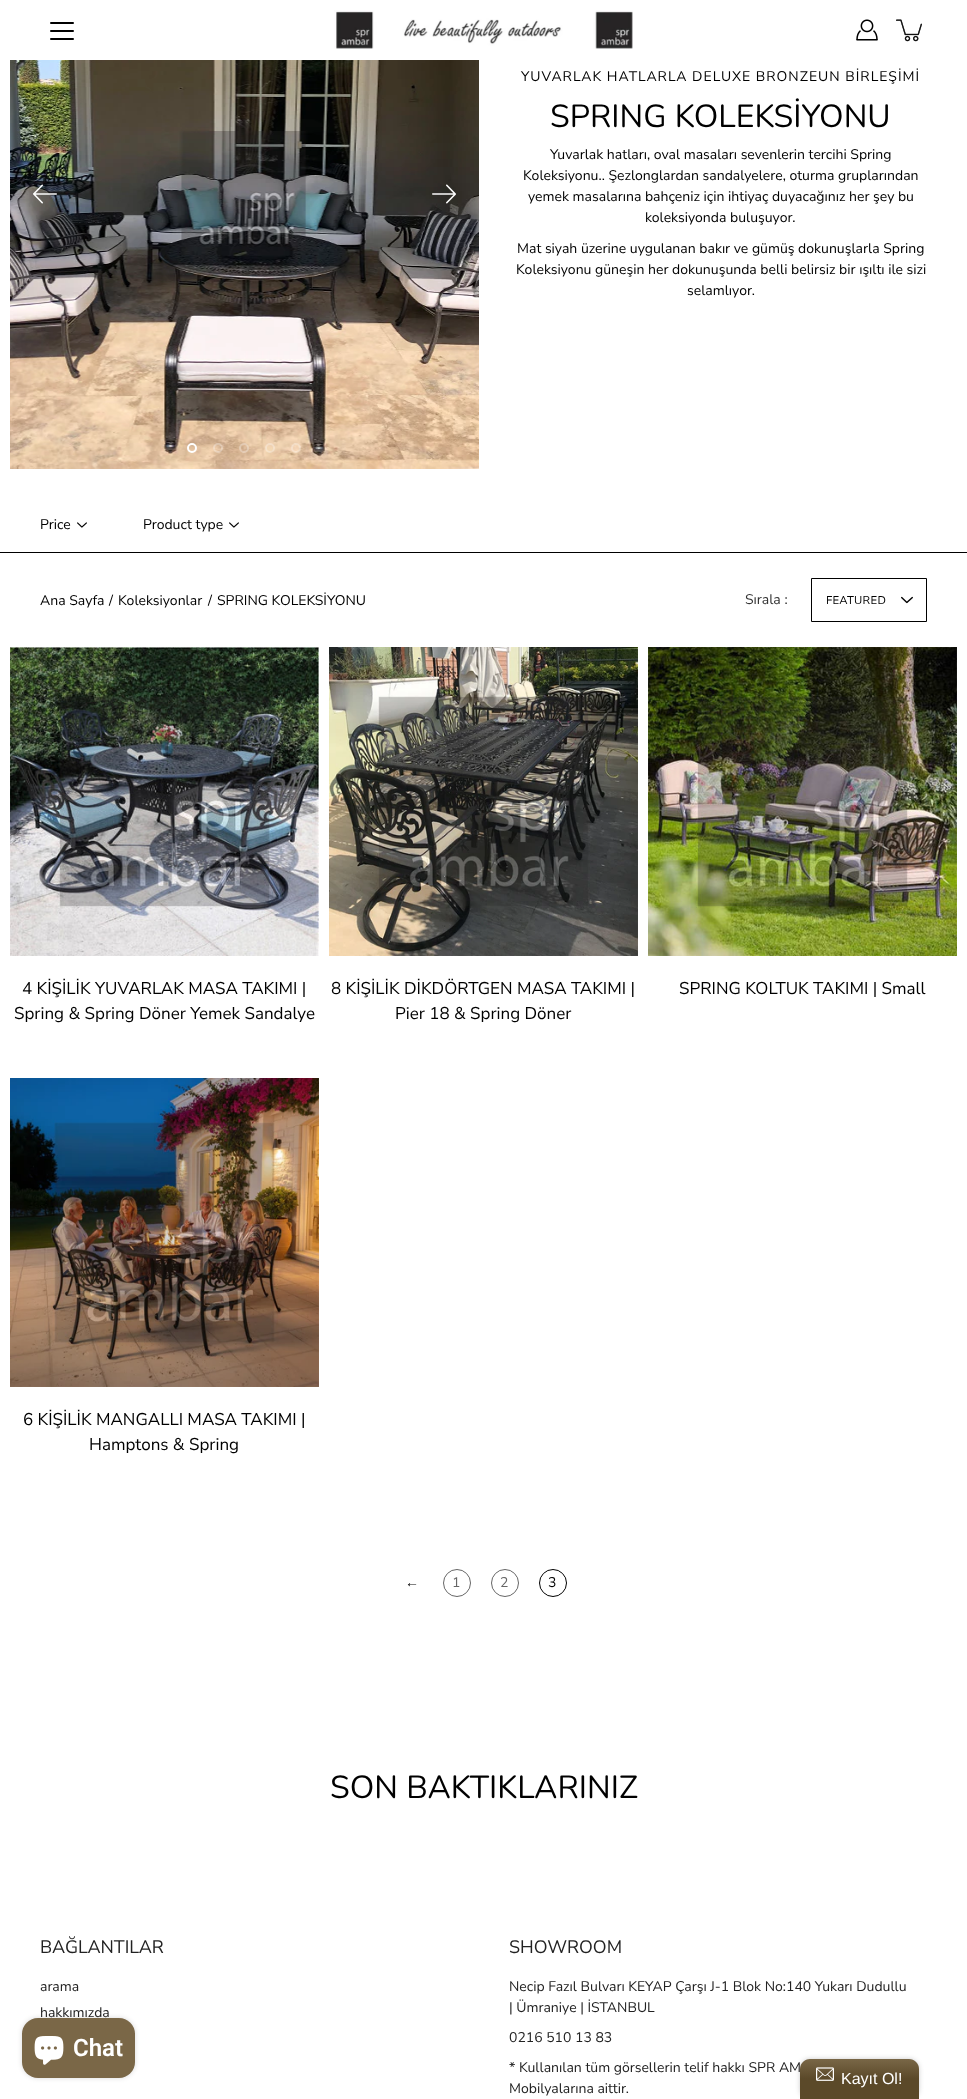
<svg xmlns="http://www.w3.org/2000/svg" width="967" height="2099" viewBox="0 0 967 2099">
  <defs>
    <linearGradient id="g1" gradientUnits="userSpaceOnUse" x1="860" y1="2059" x2="860" y2="2099"><stop offset="0" stop-color="#796747"/><stop offset="0.5" stop-color="#5b4929"/></linearGradient>
  </defs>
  <rect width="100%" height="100%" fill="#fff"/>
  <image x="334" y="10" width="299" height="39" href="img/1.png"/>
  <rect x="50" y="30" width="24" height="2" rx="1" fill="#000"/>
  <rect x="50" y="22" width="24" height="2" rx="1" fill="#000"/>
  <rect x="50" y="38" width="24" height="2" rx="1" fill="#000"/>
  <image x="856" y="19" width="22" height="22" href="img/2.png"/>
  <image x="896" y="19" width="26" height="23" href="img/3.png"/>
  <image x="10" y="60" width="469" height="409" href="img/4.png"/>
  <circle cx="192" cy="448" r="4" fill="none" stroke="#fff" stroke-width="2"/>
  <circle cx="218" cy="448" r="4" fill="none" stroke="#ffffff4d" stroke-width="2"/>
  <circle cx="244" cy="448" r="4" fill="none" stroke="#ffffff4d" stroke-width="2"/>
  <circle cx="270" cy="448" r="4" fill="none" stroke="#ffffff4d" stroke-width="2"/>
  <circle cx="296" cy="448" r="4" fill="none" stroke="#ffffff4d" stroke-width="2"/>
  <image x="33" y="184" width="24" height="20" href="img/5.png"/>
  <image x="432" y="184" width="24" height="20" href="img/6.png"/>
  <path d="M0 552h967v1H0z" fill="#000"/>
  <image x="77" y="522" width="10" height="6" href="img/7.png"/>
  <image x="229" y="522" width="10" height="6" href="img/7.png"/>
  <path d="M811.5 578.5h115v43H811.5z" fill="none" stroke="#000"/>
  <image x="901" y="596" width="12" height="8" href="img/8.png"/>
  <image x="10" y="647" width="309" height="309" href="img/9.png"/>
  <image x="329" y="647" width="309" height="309" href="img/10.png"/>
  <image x="648" y="647" width="309" height="309" href="img/11.png"/>
  <image x="10" y="1078" width="309" height="309" href="img/12.png"/>
  <circle cx="457" cy="1583" r="13.5" fill="none" stroke="#666"/>
  <circle cx="505" cy="1583" r="13.5" fill="none" stroke="#666"/>
  <circle cx="553" cy="1583" r="13.5" fill="none" stroke="#000"/>
  <rect x="22" y="2018" width="113" height="60" rx="16" fill="#00000026" filter="blur(2.5px)"/>
  <rect x="22" y="2018" width="113" height="60" rx="16" fill="#7a6747"/>
  <image x="34" y="2036" width="30" height="29" href="img/13.png"/>
  <rect x="800" y="2059" width="119" height="40" rx="10" fill="#00000033" filter="blur(2.5px)"/>
  <path d="M810 2059H909C914.5 2059 919 2063.5 919 2069V2099H800V2069C800 2063.5 804.5 2059 810 2059Z" fill="url(#g1)"/>
  <image x="816" y="2067" width="18" height="14" href="img/14.png"/>
  <text x="521" y="81" font-family="Nunito Sans" font-size="14" letter-spacing="1" fill="#000">YUVARLAK HATLARLA DELUXE BRONZEUN BİRLEŞİMİ</text>
  <text x="550" y="127" font-family="Nunito" font-size="32" fill="#000">SPRING KOLEKSİYONU</text>
  <g font-family="Nunito Sans" font-size="14" fill="#000">
    <text x="550" y="159">Yuvarlak hatları, oval masaları sevenlerin tercihi Spring</text>
    <text x="523" y="180">Koleksiyonu.. Şezlonglardan sandalyelere, oturma gruplarından</text>
    <text x="528" y="201">yemek masalarına bahçeniz için ihtiyaç duyacağınız her şey bu</text>
    <text x="645" y="222">koleksiyonda buluşuyor.</text>
    <text x="517" y="253">Mat siyah üzerine uygulanan bakır ve gümüş dokunuşlarla Spring</text>
    <text x="516" y="274">Koleksiyonu güneşin her dokunuşunda belli belirsiz bir ışıltı ile sizi</text>
    <text x="687" y="295">selamlıyor.</text>
    <text x="40" y="529">Price</text>
    <text x="143" y="529">Product type</text>
    <text x="40" y="605">Ana Sayfa</text>
    <text x="109" y="605">/</text>
    <text x="118" y="605">Koleksiyonlar</text>
    <text x="208" y="605">/</text>
    <text x="217" y="605">SPRING KOLEKSİYONU</text>
  </g>
  <text x="745" y="604" font-family="Nunito Sans" font-size="14" fill="#333">Sırala :</text>
  <text x="826" y="604" font-family="'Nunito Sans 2'" font-size="11.25" letter-spacing="0.25" fill="#000">FEATURED</text>
  <g font-family="Nunito Sans" font-size="17" fill="#000">
    <text x="22" y="994">4 KİŞİLİK YUVARLAK MASA TAKIMI |</text>
    <text x="14" y="1019">Spring &amp; Spring Döner Yemek Sandalye</text>
    <text x="331" y="994">8 KİŞİLİK DİKDÖRTGEN MASA TAKIMI |</text>
    <text x="395" y="1019">Pier 18 &amp; Spring Döner</text>
    <text x="679" y="994">SPRING KOLTUK TAKIMI | Small</text>
    <text x="23" y="1425">6 KİŞİLİK MANGALLI MASA TAKIMI |</text>
    <text x="89" y="1450">Hamptons &amp; Spring</text>
  </g>
  <text x="405" y="1587" font-family="Liberation Sans" font-size="14" fill="#000">←</text>
  <g font-family="Nunito Sans" font-size="14" fill="#666">
    <text x="452" y="1587">1</text>
    <text x="500" y="1587">2</text>
  </g>
  <text x="548" y="1587" font-family="Nunito Sans" font-size="14" fill="#000">3</text>
  <text x="330" y="1798" font-family="Nunito" font-size="32" fill="#000">SON BAKTIKLARINIZ</text>
  <text x="40" y="1953" font-family="Nunito Sans" font-size="18" fill="#222">BAĞLANTILAR</text>
  <g font-family="Nunito Sans" font-size="14" fill="#222">
    <text x="40" y="1991">arama</text>
    <text x="40" y="2017">hakkımızda</text>
  </g>
  <text x="509" y="1953" font-family="Nunito Sans" font-size="18" fill="#222">SHOWROOM</text>
  <g font-family="Nunito Sans" font-size="14" fill="#222">
    <text x="509" y="1991">Necip Fazıl Bulvarı KEYAP Çarşı J-1 Blok No:140 Yukarı Dudullu</text>
    <text x="509" y="2012">| Ümraniye | İSTANBUL</text>
    <text x="509" y="2042">0216 510 13 83</text>
    <text x="509" y="2072">* Kullanılan tüm görsellerin telif hakkı SPR AM</text>
    <text x="509" y="2093">Mobilyalarına aittir.</text>
  </g>
  <text x="73" y="2056" font-family="Roboto" font-size="24" font-weight="600" fill="#fff">Chat</text>
  <text x="841" y="2084" font-family="Liberation Sans" font-size="16" fill="#fff">Kayıt Ol!</text>
</svg>
